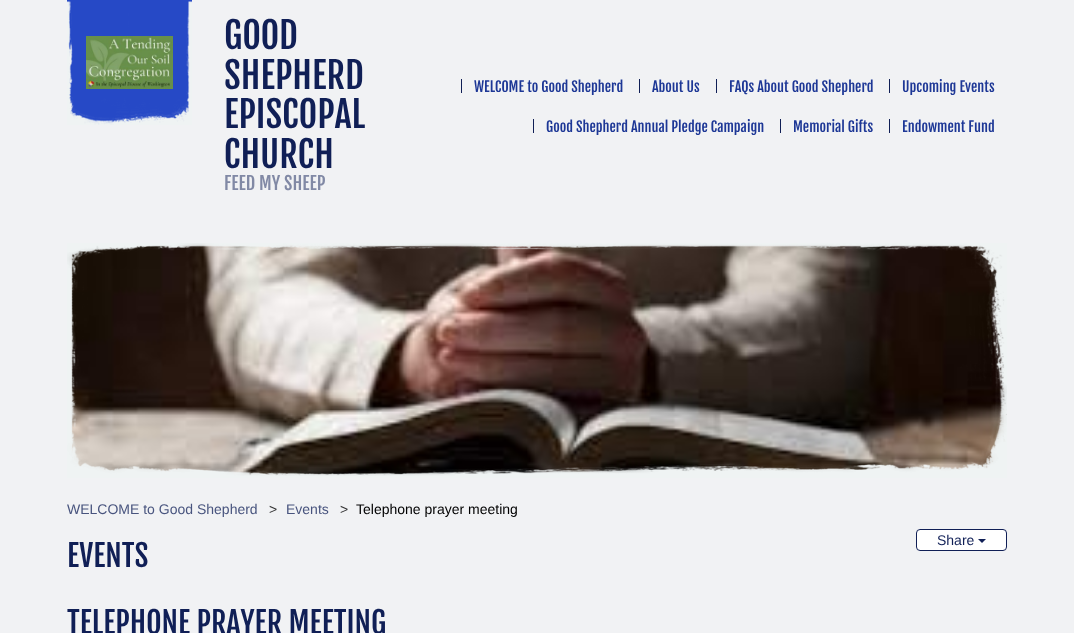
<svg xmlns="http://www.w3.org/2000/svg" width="1074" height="633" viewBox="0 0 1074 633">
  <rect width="100%" height="100%" fill="#f1f2f4"/>
  <path d="M67 0h125v125H67z" fill="#2649c6"/>
  <image x="67" y="1" width="125" height="124" href="img/1.png"/>
  <image x="86" y="36" width="87" height="53" href="img/2.png"/>
  <path d="M461 79h1v14H461z" fill="#101f56"/>
  <path d="M639 79h1v14H639z" fill="#101f56"/>
  <path d="M716 79h1v14H716z" fill="#101f56"/>
  <path d="M889 79h1v14H889z" fill="#101f56"/>
  <path d="M533 119h1v14H533z" fill="#101f56"/>
  <path d="M780 119h1v14H780z" fill="#101f56"/>
  <path d="M889 119h1v14H889z" fill="#101f56"/>
  <image x="67" y="243" width="940" height="233" href="img/3.png"/>
  <image x="67" y="243" width="940" height="235" href="img/4.png"/>
  <rect x="916.5" y="529.5" width="90" height="21" rx="3.5" fill="#fff" stroke="#101f56"/>
  <path d="M978 539H986L982 543Z" fill="#101f56"/>
  <g font-family="Fjalla One" font-size="36" fill="#101f56">
    <text x="224" y="49">GOOD</text>
    <text x="224" y="89">SHEPHERD</text>
    <text x="224" y="128">EPISCOPAL</text>
    <text x="224" y="168">CHURCH</text>
  </g>
  <text x="224" y="190" font-family="Fjalla One" font-size="18" fill="#8189a5">FEED MY SHEEP</text>
  <g font-family="Fjalla One" font-size="14" fill="#1d3796">
    <text x="474" y="92">WELCOME to Good Shepherd</text>
    <text x="652" y="92">About Us</text>
    <text x="729" y="92">FAQs About Good Shepherd</text>
    <text x="902" y="92">Upcoming Events</text>
    <text x="546" y="132">Good Shepherd Annual Pledge Campaign</text>
    <text x="793" y="132">Memorial Gifts</text>
    <text x="902" y="132">Endowment Fund</text>
  </g>
  <text x="67" y="514" font-family="Liberation Sans" font-size="14" fill="#48547e">WELCOME to Good Shepherd</text>
  <text x="269" y="514" font-family="Liberation Sans" font-size="14" fill="#333">&gt;</text>
  <text x="286" y="514" font-family="Liberation Sans" font-size="14" fill="#48547e">Events</text>
  <text x="340" y="514" font-family="Liberation Sans" font-size="14" fill="#333">&gt;</text>
  <text x="356" y="514" font-family="Liberation Sans" font-size="14" fill="#000">Telephone prayer meeting</text>
  <text x="67" y="567" font-family="Fjalla One" font-size="30" fill="#101f56">EVENTS</text>
  <text x="937" y="545" font-family="Liberation Sans" font-size="14" fill="#101f56">Share</text>
  <text x="67" y="634" font-family="Fjalla One" font-size="30" fill="#101f56">TELEPHONE PRAYER MEETING</text>
</svg>
